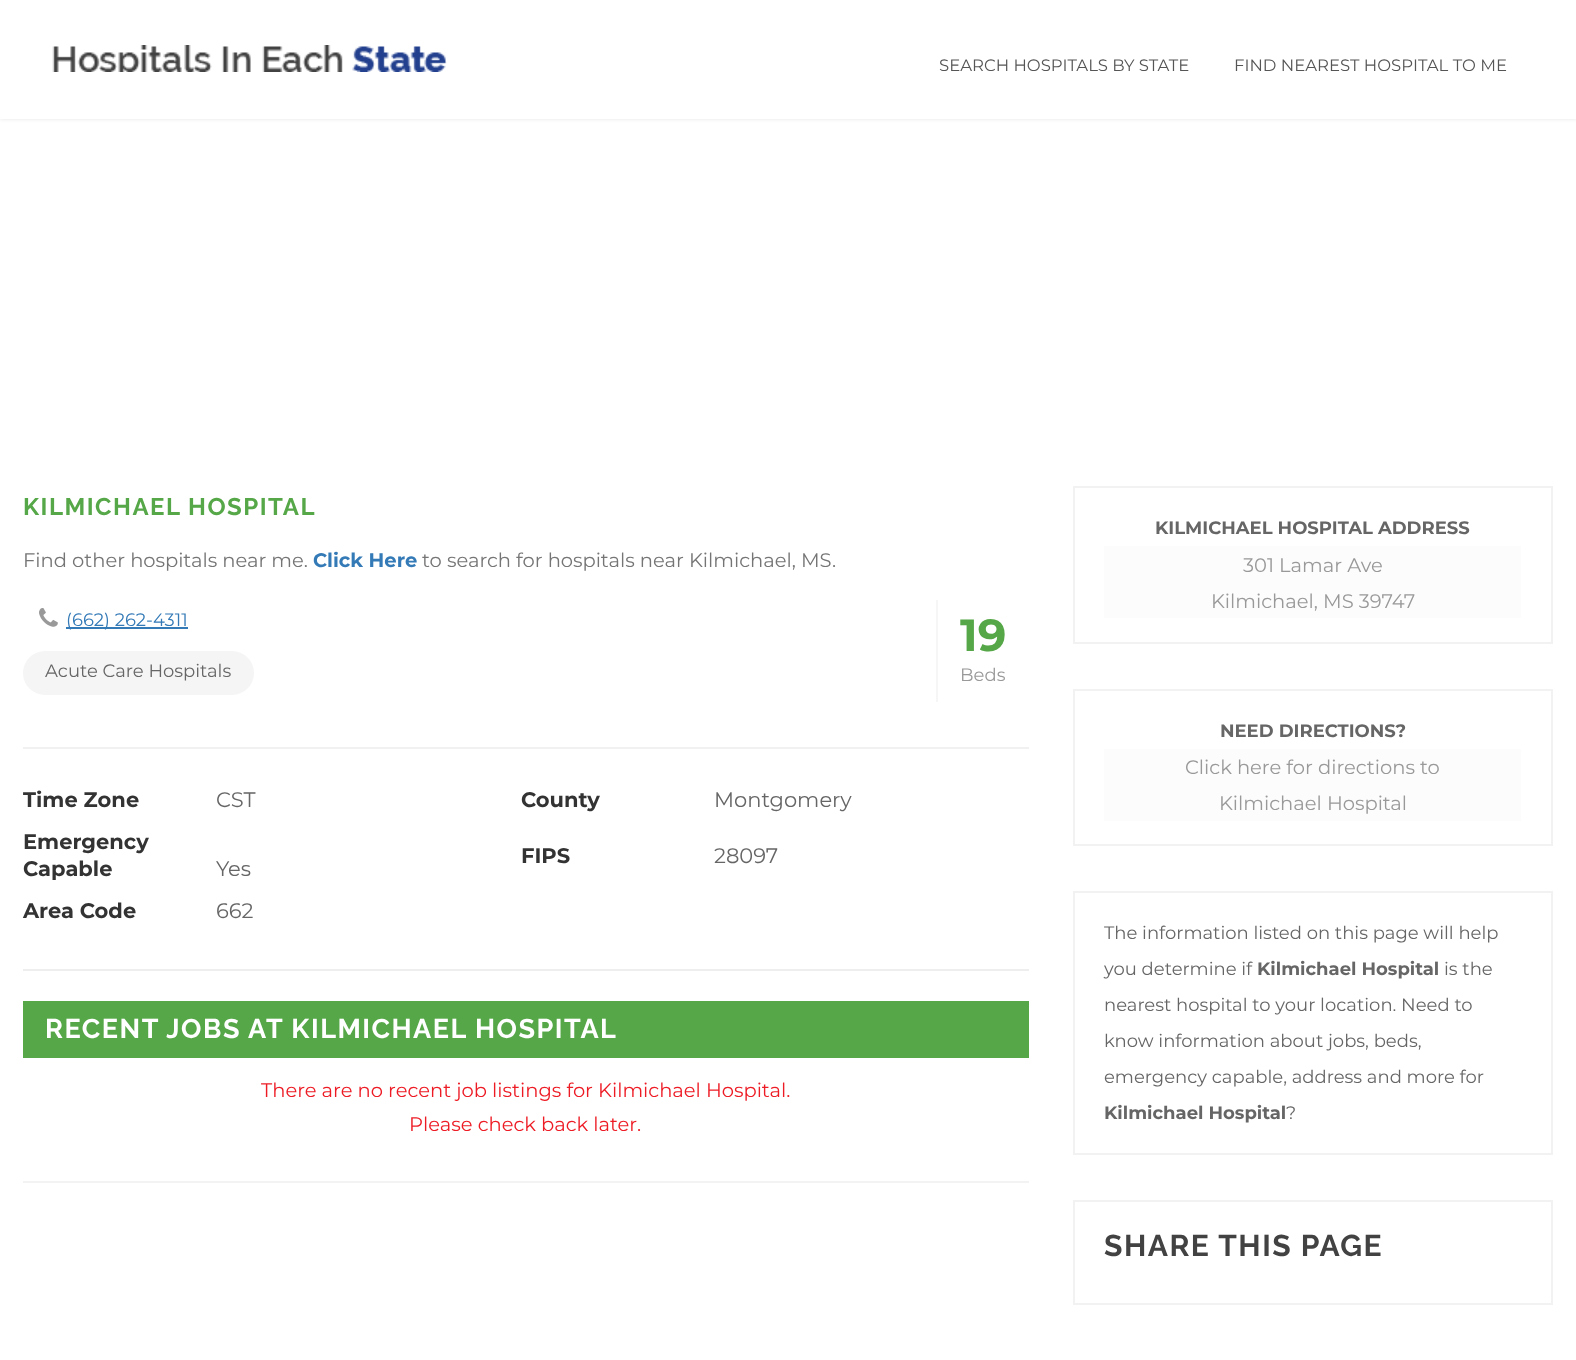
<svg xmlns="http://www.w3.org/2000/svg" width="1576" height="1360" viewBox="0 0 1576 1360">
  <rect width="100%" height="100%" fill="#fff"/>
  <path d="M0 0h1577v119H0z" fill="#0000001a" filter="blur(2px)"/>
  <path d="M0 0h1576v119H0z" fill="#fff"/>
  <image x="52" y="45" width="395" height="27" href="img/1.png"/>
  <path d="M23 747h1006v2H23z" fill="#f1f1f1"/>
  <image x="39" y="608" width="19" height="19" href="img/2.png"/>
  <path d="M66 627h122v2H66z" fill="#337ab7"/>
  <path d="M936 600h2v102H936z" fill="#f6f6f6"/>
  <rect x="23" y="651" width="231" height="44" rx="22" fill="#f5f5f5"/>
  <path d="M23 969h1006v2H23z" fill="#eee"/>
  <path d="M23 1001h1006v57H23z" fill="#55a747"/>
  <path d="M23 1181h1006v2H23z" fill="#f3f3f3"/>
  <path d="M1074 487h478v156H1074z" fill="none" stroke="#f2f2f2" stroke-width="2"/>
  <path d="M1104 546h417v72H1104z" fill="#fcfcfc"/>
  <path d="M1074 690h478v155H1074z" fill="none" stroke="#f2f2f2" stroke-width="2"/>
  <path d="M1104 749h417v72H1104z" fill="#fcfcfc"/>
  <path d="M1074 892h478v262H1074z" fill="none" stroke="#f2f2f2" stroke-width="2"/>
  <path d="M1074 1201h478v103H1074z" fill="none" stroke="#f2f2f2" stroke-width="2"/>
  <g font-family="Montserrat" font-size="16.5" fill="#555">
    <text x="939" y="71">SEARCH HOSPITALS BY STATE</text>
    <text x="1234" y="71">FIND NEAREST HOSPITAL TO ME</text>
  </g>
  <text x="23" y="515" font-family="Raleway" font-size="24" font-weight="bold" letter-spacing="1.5" fill="#55a747">KILMICHAEL HOSPITAL</text>
  <text x="23" y="567" font-family="Montserrat" font-size="19.5" fill="#757575">Find other hospitals near me.</text>
  <text x="313" y="567" font-family="Montserrat" font-size="19.5" font-weight="bold" fill="#337ab7">Click Here</text>
  <text x="422" y="567" font-family="Montserrat" font-size="19.5" fill="#757575">to search for hospitals near Kilmichael, MS.</text>
  <text x="66" y="626" font-family="Montserrat" font-size="18" fill="#337ab7">(662) 262-4311</text>
  <text x="960" y="651" font-family="Montserrat" font-size="45" font-weight="bold" fill="#55a747">19</text>
  <text x="960" y="681" font-family="Montserrat" font-size="18" fill="#999">Beds</text>
  <text x="45" y="677" font-family="Montserrat" font-size="18" fill="#666">Acute Care Hospitals</text>
  <text x="23" y="807" font-family="Montserrat" font-size="21" font-weight="bold" fill="#333">Time Zone</text>
  <text x="216" y="807" font-family="Montserrat" font-size="21" fill="#666">CST</text>
  <text x="521" y="807" font-family="Montserrat" font-size="21" font-weight="bold" fill="#333">County</text>
  <text x="714" y="807" font-family="Montserrat" font-size="21" fill="#666">Montgomery</text>
  <g font-family="Montserrat" font-size="21" font-weight="bold" fill="#333">
    <text x="23" y="849">Emergency</text>
    <text x="23" y="876">Capable</text>
  </g>
  <text x="216" y="876" font-family="Montserrat" font-size="21" fill="#666">Yes</text>
  <text x="521" y="863" font-family="Montserrat" font-size="21" font-weight="bold" fill="#333">FIPS</text>
  <text x="714" y="863" font-family="Montserrat" font-size="21" fill="#666">28097</text>
  <text x="23" y="918" font-family="Montserrat" font-size="21" font-weight="bold" fill="#333">Area Code</text>
  <text x="216" y="918" font-family="Montserrat" font-size="21" fill="#666">662</text>
  <text x="45" y="1038" font-family="Raleway" font-size="27" font-weight="bold" letter-spacing="1.5" fill="#fff">RECENT JOBS AT KILMICHAEL HOSPITAL</text>
  <g font-family="Montserrat" font-size="19.5" fill="#ed1b24">
    <text x="261" y="1097">There are no recent job listings for Kilmichael Hospital.</text>
    <text x="409" y="1131">Please check back later.</text>
  </g>
  <text x="1155" y="534" font-family="Montserrat" font-size="18" font-weight="bold" fill="#666">KILMICHAEL HOSPITAL ADDRESS</text>
  <g font-family="Montserrat" font-size="19.5" fill="#999">
    <text x="1243" y="572">301 Lamar Ave</text>
    <text x="1211" y="608">Kilmichael, MS 39747</text>
  </g>
  <text x="1220" y="737" font-family="Montserrat" font-size="18" font-weight="bold" fill="#666">NEED DIRECTIONS?</text>
  <g font-family="Montserrat" font-size="19.5" fill="#999">
    <text x="1185" y="774">Click here for directions to</text>
    <text x="1219" y="810">Kilmichael Hospital</text>
  </g>
  <g font-family="Montserrat" font-size="18" fill="#666">
    <text x="1104" y="939">The information listed on this page will help</text>
    <text x="1104" y="975">you determine if</text>
  </g>
  <text x="1257" y="975" font-family="Montserrat" font-size="18" font-weight="bold" fill="#666">Kilmichael Hospital</text>
  <g font-family="Montserrat" font-size="18" fill="#666">
    <text x="1444" y="975">is the</text>
    <text x="1104" y="1011">nearest hospital to your location. Need to</text>
    <text x="1104" y="1047">know information about jobs, beds,</text>
    <text x="1104" y="1083">emergency capable, address and more for</text>
  </g>
  <text x="1104" y="1119" font-family="Montserrat" font-size="18" font-weight="bold" fill="#666">Kilmichael Hospital</text>
  <text x="1286" y="1119" font-family="Montserrat" font-size="18" fill="#666">?</text>
  <text x="1104" y="1256" font-family="Raleway" font-size="30" font-weight="bold" letter-spacing="1.5" fill="#424242">SHARE THIS PAGE</text>
</svg>
